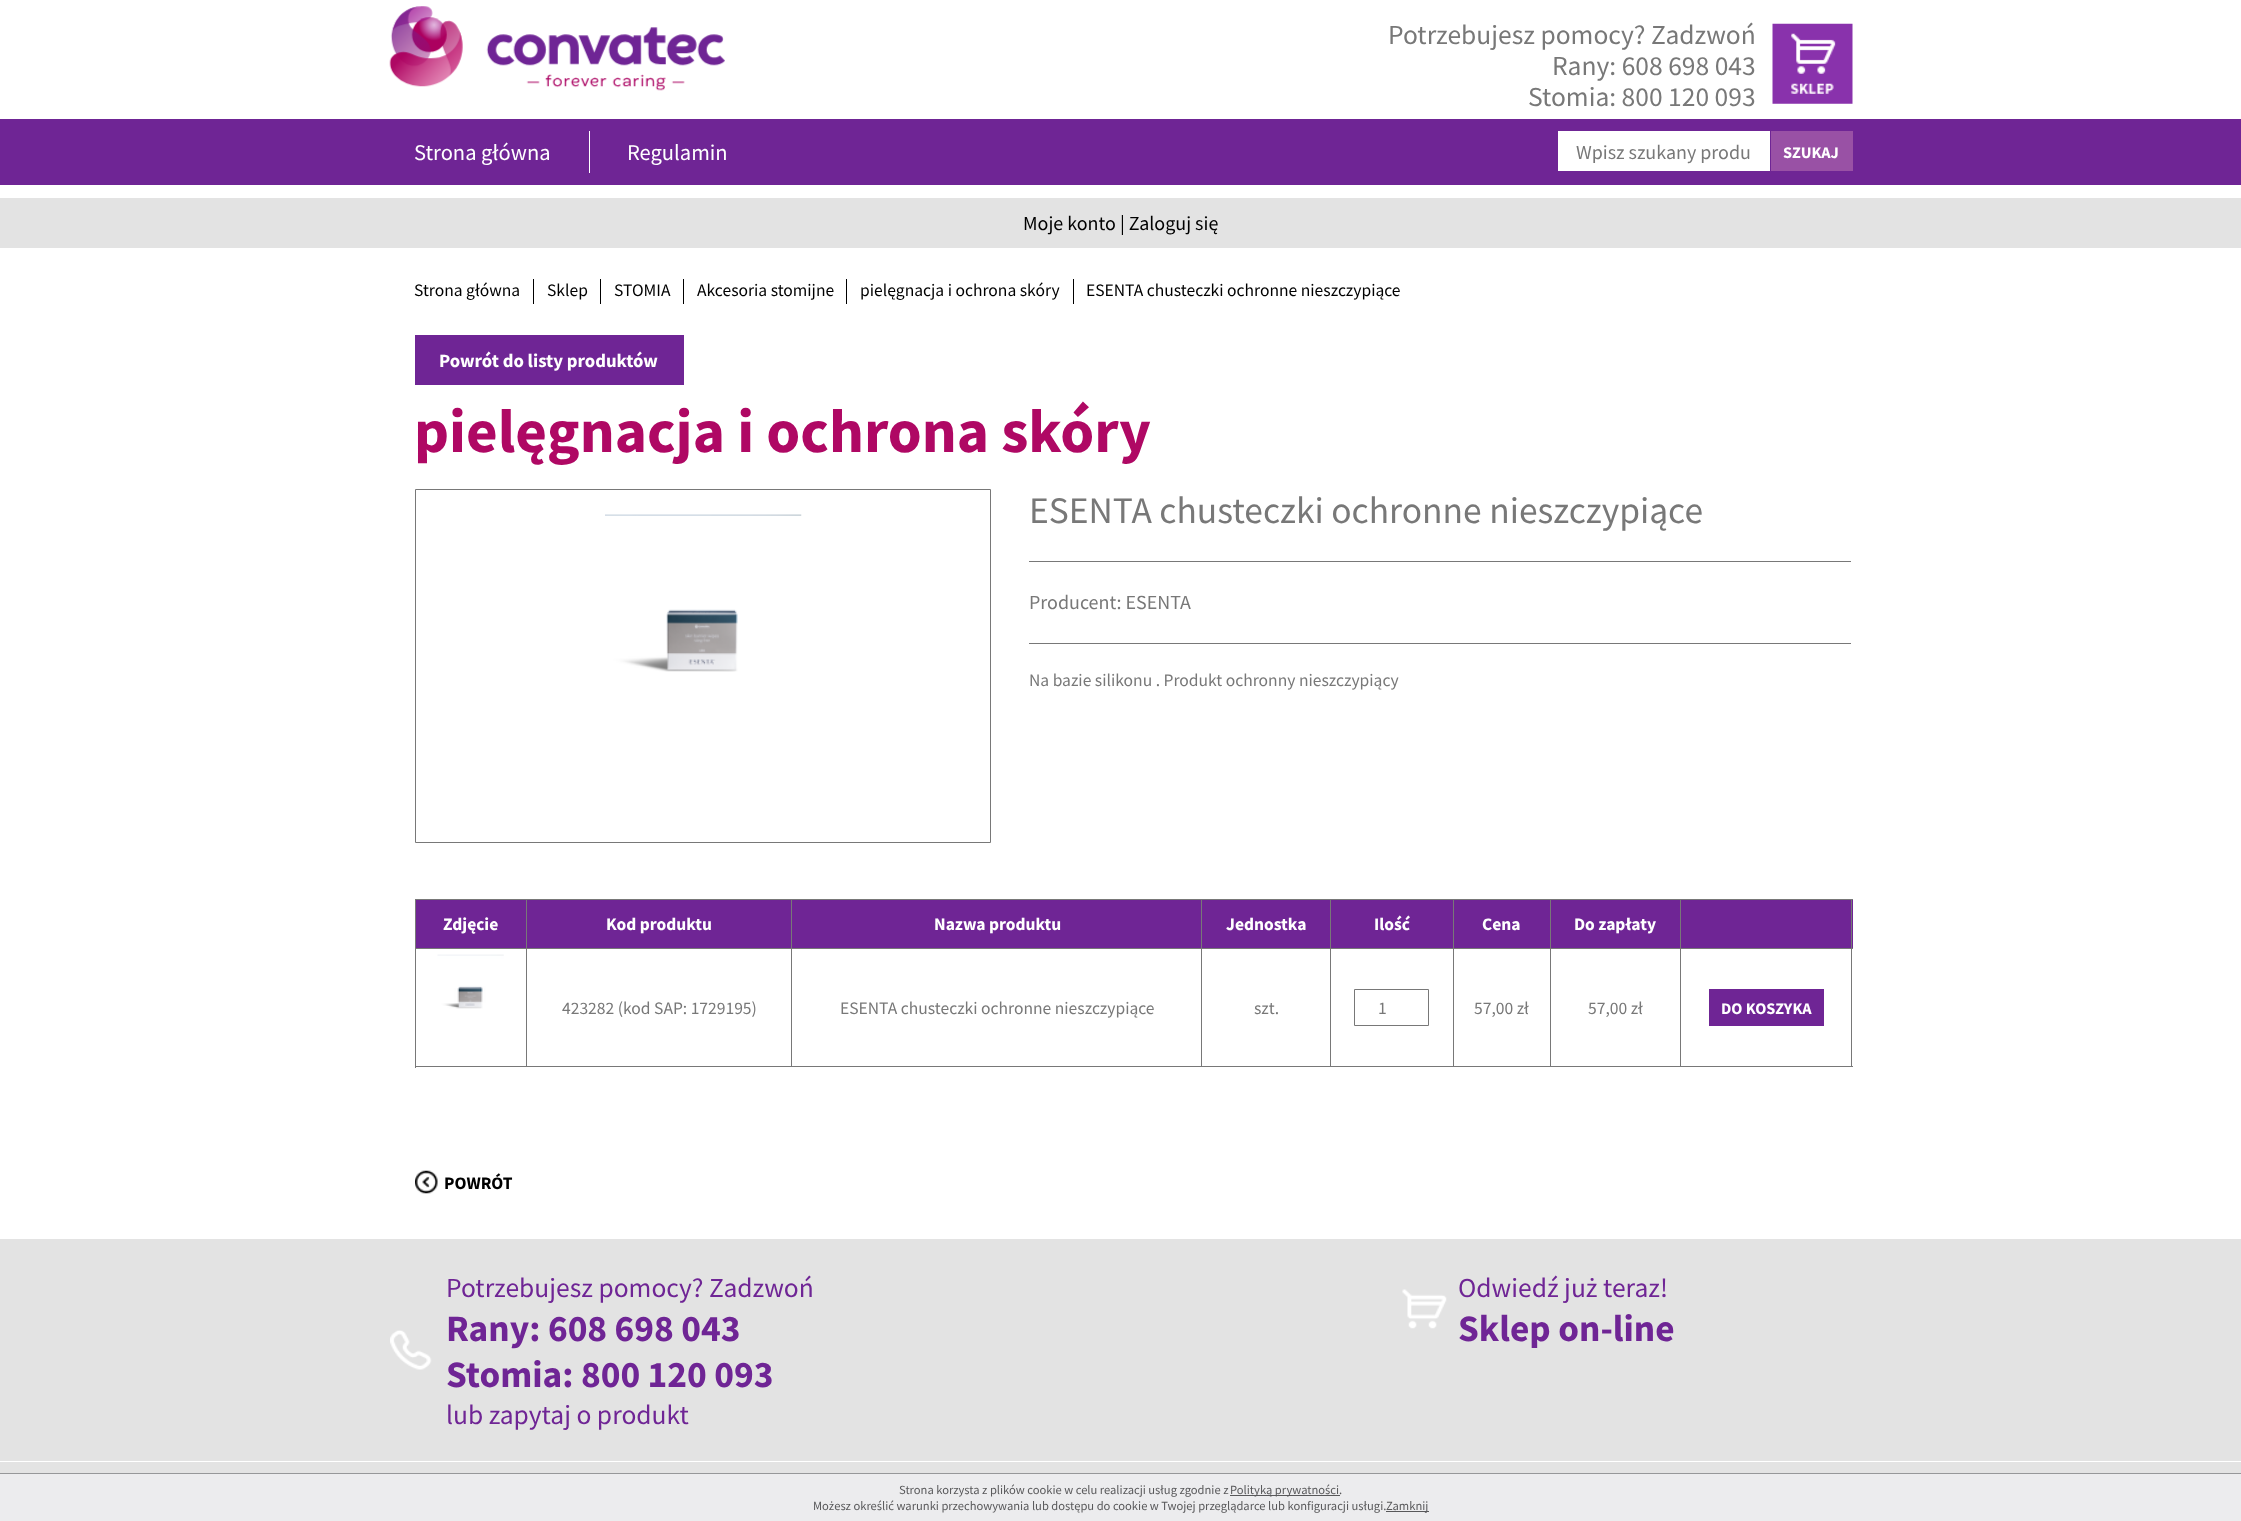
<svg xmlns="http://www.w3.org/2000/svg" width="2241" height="1521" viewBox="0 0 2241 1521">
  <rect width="100%" height="100%" fill="#fff"/>
  <image x="389" y="6" width="336" height="85" href="img/1.png"/>
  <image x="1772" y="23" width="81" height="81" href="img/2.png"/>
  <path d="M0 119h2241v66H0z" fill="#6f2595"/>
  <path d="M589 131h1v42H589z" fill="#fff"/>
  <path d="M1558 131h212v40H1558z" fill="#fff"/>
  <path d="M1771 131h82v40H1771z" fill="#9951a5"/>
  <path d="M0 198h2241v50H0z" fill="#e3e3e3"/>
  <path d="M533 279h1v25H533z" fill="#000"/>
  <path d="M600 279h1v25H600z" fill="#000"/>
  <path d="M683 279h1v25H683z" fill="#000"/>
  <path d="M846 279h1v25H846z" fill="#000"/>
  <path d="M1073 279h1v25H1073z" fill="#000"/>
  <path d="M415 335h269v50H415z" fill="#6f2595"/>
  <path d="M415.5 489.5h575v353H415.5z" fill="none" stroke="#787878"/>
  <image x="605" y="514" width="197" height="158" href="img/3.png"/>
  <path d="M1029 561h822v1H1029z" fill="#787878"/>
  <path d="M1029 643h822v1H1029z" fill="#787878"/>
  <path d="M415 1066h1438v1H415z" fill="#787878"/>
  <path d="M415 899h1v169H415z" fill="#787878"/>
  <path d="M416 900h914v48H416z" fill="#6f2595"/>
  <path d="M416 899h1437v1H416z" fill="#787878"/>
  <path d="M526 899h1v49H526z" fill="#787878"/>
  <path d="M791 899h1v49H791z" fill="#787878"/>
  <path d="M1201 899h1v49H1201z" fill="#787878"/>
  <path d="M1330 899h1v49H1330z" fill="#787878"/>
  <path d="M1331 900h122v48H1331z" fill="#6f2595"/>
  <path d="M1453 899h1v49H1453z" fill="#787878"/>
  <path d="M1454 900h96v48H1454z" fill="#6f2595"/>
  <path d="M1550 899h1v49H1550z" fill="#787878"/>
  <path d="M1551 900h129v48H1551z" fill="#6f2595"/>
  <path d="M1680 899h1v49H1680z" fill="#787878"/>
  <path d="M1681 900h172v48H1681z" fill="#6f2595"/>
  <path d="M1851 899h1v49H1851z" fill="#787878"/>
  <path d="M416 948h1437v1H416z" fill="#787878"/>
  <path d="M526 948h1v118H526z" fill="#787878"/>
  <image x="437" y="954" width="67" height="55" href="img/4.png"/>
  <path d="M791 948h1v118H791z" fill="#787878"/>
  <path d="M1201 948h1v118H1201z" fill="#787878"/>
  <path d="M1330 948h1v118H1330z" fill="#787878"/>
  <path d="M1453 948h1v118H1453z" fill="#787878"/>
  <path d="M1354.5 989.5h74v36H1354.5z" fill="none" stroke="#787878"/>
  <path d="M1550 948h1v118H1550z" fill="#787878"/>
  <path d="M1680 948h1v118H1680z" fill="#787878"/>
  <path d="M1851 948h1v118H1851z" fill="#787878"/>
  <path d="M1709 989h115v37H1709z" fill="#6f2595"/>
  <image x="415" y="1170" width="23" height="24" href="img/5.png"/>
  <path d="M0 1239h2241v222H0z" fill="#e3e3e3"/>
  <image x="390" y="1330" width="42" height="40" href="img/6.png"/>
  <image x="1402" y="1289" width="45" height="40" href="img/7.png"/>
  <path d="M0 1462h2241v11H0z" fill="#e3e3e3"/>
  <path d="M0 1474h2241v47H0z" fill="#ececee"/>
  <path d="M0 1473h2241v1H0z" fill="#969799"/>
  <path d="M1230 1495h110v1H1230z" fill="#58585a"/>
  <path d="M1386 1511h43v1H1386z" fill="#58585a"/>
  <g font-family="Source Sans Pro" font-size="27.5" fill="#787878">
    <text x="1388" y="44">Potrzebujesz pomocy? Zadzwoń</text>
    <text x="1552" y="75">Rany: 608 698 043</text>
    <text x="1528" y="106">Stomia: 800 120 093</text>
  </g>
  <g font-family="Source Sans Pro" font-size="22.5" fill="#fff">
    <text x="414" y="160">Strona główna</text>
    <text x="627" y="160">Regulamin</text>
  </g>
  <text x="1576" y="159" font-family="Source Sans Pro" font-size="20" fill="#787878">Wpisz szukany produ</text>
  <text x="1783" y="158" font-family="Source Sans Pro" font-size="16.25" font-weight="bold" fill="#fff">SZUKAJ</text>
  <text x="1023" y="230" font-family="Source Sans Pro" font-size="20" fill="#000">Moje konto | Zaloguj się</text>
  <g font-family="Source Sans Pro" font-size="17.5" fill="#000">
    <text x="414" y="296">Strona główna</text>
    <text x="547" y="296">Sklep</text>
    <text x="614" y="296">STOMIA</text>
    <text x="697" y="296">Akcesoria stomijne</text>
    <text x="860" y="296">pielęgnacja i ochrona skóry</text>
    <text x="1086" y="296">ESENTA chusteczki ochronne nieszczypiące</text>
  </g>
  <text x="439" y="367" font-family="Source Sans Pro" font-size="18.75" font-weight="bold" fill="#fff">Powrót do listy produktów</text>
  <text x="414" y="452" font-family="Source Sans Pro" font-size="61.25" font-weight="bold" fill="#af0864">pielęgnacja i ochrona skóry</text>
  <text x="1029" y="523" font-family="Source Sans Pro" font-size="37.5" fill="#787878">ESENTA chusteczki ochronne nieszczypiące</text>
  <text x="1029" y="609" font-family="Source Sans Pro" font-size="20" fill="#787878">Producent: ESENTA</text>
  <text x="1029" y="686" font-family="Source Sans Pro" font-size="17.5" fill="#787878">Na bazie silikonu . Produkt ochronny nieszczypiący</text>
  <g font-family="Source Sans Pro" font-size="17.5" font-weight="bold" fill="#fff">
    <text x="443" y="930">Zdjęcie</text>
    <text x="606" y="930">Kod produktu</text>
    <text x="934" y="930">Nazwa produktu</text>
    <text x="1226" y="930">Jednostka</text>
    <text x="1374" y="930">Ilość</text>
    <text x="1482" y="930">Cena</text>
    <text x="1574" y="930">Do zapłaty</text>
  </g>
  <g font-family="Source Sans Pro" font-size="17.5" fill="#787878">
    <text x="562" y="1014">423282 (kod SAP: 1729195)</text>
    <text x="840" y="1014">ESENTA chusteczki ochronne nieszczypiące</text>
    <text x="1254" y="1014">szt.</text>
    <text x="1378" y="1014">1</text>
    <text x="1474" y="1014">57,00 zł</text>
    <text x="1588" y="1014">57,00 zł</text>
  </g>
  <text x="1721" y="1014" font-family="Source Sans Pro" font-size="16.25" font-weight="bold" fill="#fff">DO KOSZYKA</text>
  <text x="444" y="1189" font-family="Source Sans Pro" font-size="17.5" font-weight="bold" fill="#000">POWRÓT</text>
  <text x="446" y="1297" font-family="Source Sans Pro" font-size="27.5" fill="#6f2595">Potrzebujesz pomocy? Zadzwoń</text>
  <g font-family="Source Sans Pro" font-size="37.4" font-weight="bold" fill="#6f2595">
    <text x="446" y="1341">Rany: 608 698 043</text>
    <text x="446" y="1387">Stomia: 800 120 093</text>
  </g>
  <g font-family="Source Sans Pro" font-size="27.5" fill="#6f2595">
    <text x="446" y="1424">lub zapytaj o produkt</text>
    <text x="1458" y="1297">Odwiedź już teraz!</text>
  </g>
  <text x="1458" y="1341" font-family="Source Sans Pro" font-size="37.4" font-weight="bold" fill="#6f2595">Sklep on-line</text>
  <g font-family="Source Sans Pro" font-size="12.5" fill="#58585a">
    <text x="899" y="1494">Strona korzysta z plików cookie w celu realizacji usług zgodnie z</text>
    <text x="1230" y="1494">Polityką prywatności.</text>
    <text x="813" y="1510">Możesz określić warunki przechowywania lub dostępu do cookie w Twojej przeglądarce lub konfiguracji usługi.</text>
    <text x="1386" y="1510">Zamknij</text>
  </g>
</svg>
